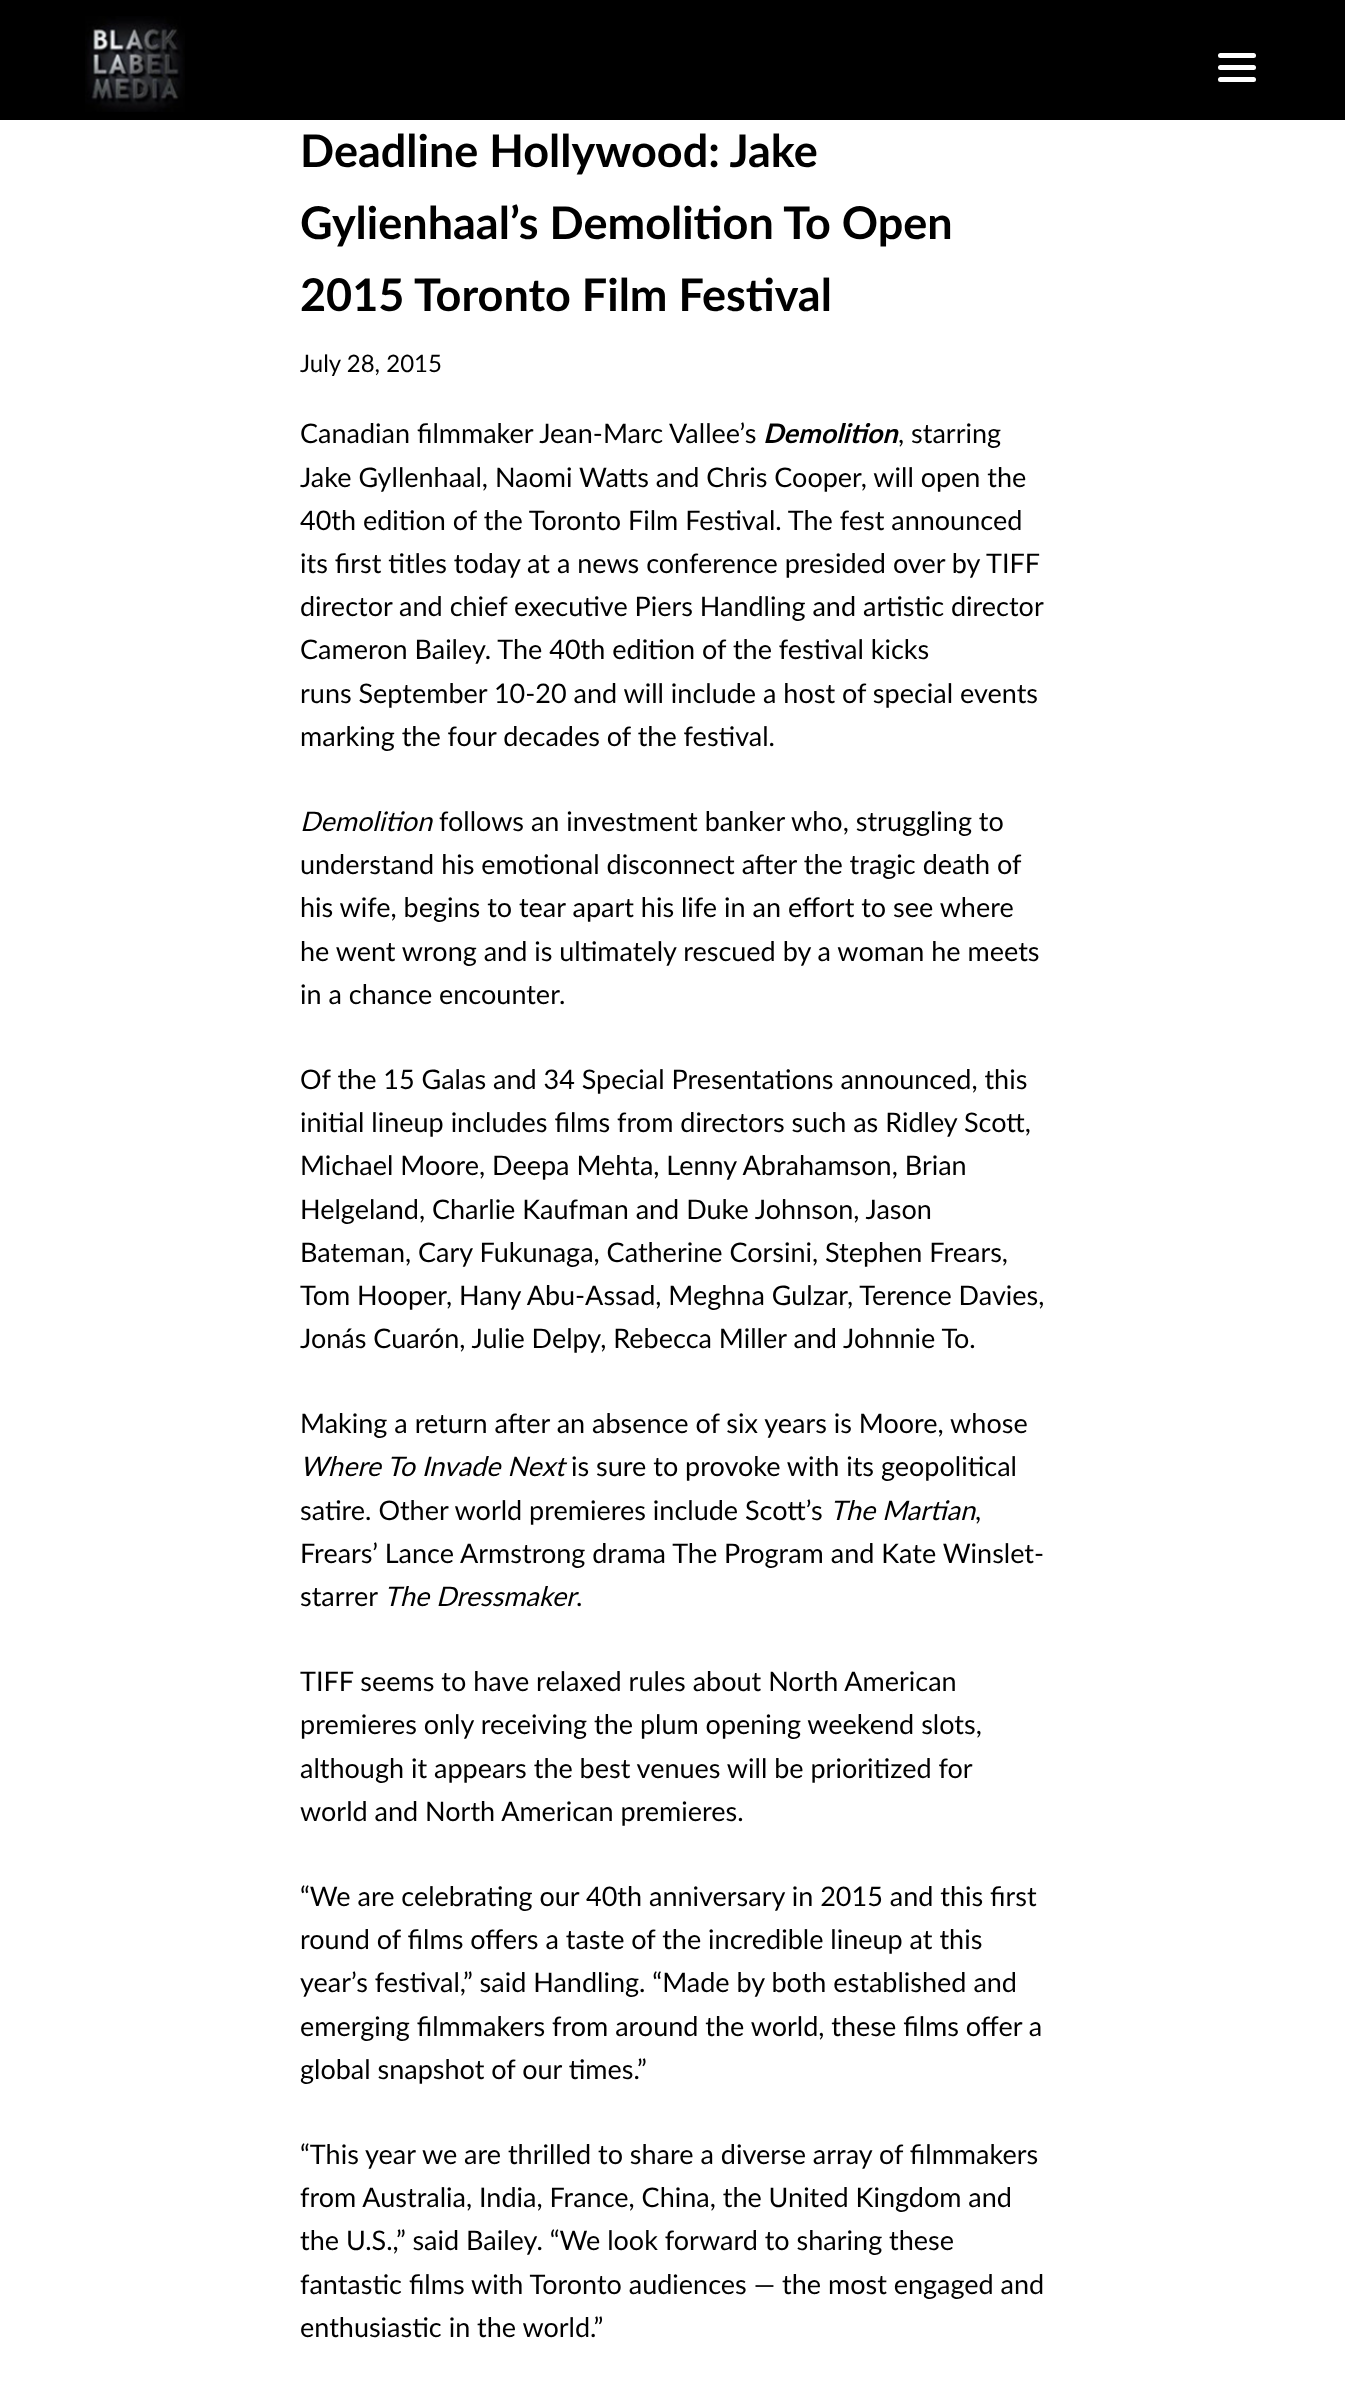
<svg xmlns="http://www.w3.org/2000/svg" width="1345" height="2403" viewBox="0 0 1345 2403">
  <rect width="100%" height="100%" fill="#fff"/>
  <path d="M0 0h1345v120H0z" fill="#000"/>
  <image x="85" y="16" width="100" height="96" href="img/1.png"/>
  <rect x="1218" y="65" width="38" height="5" rx="2.5" fill="#fff"/>
  <rect x="1218" y="53" width="38" height="5" rx="2.5" fill="#fff"/>
  <rect x="1218" y="77" width="38" height="5" rx="2.5" fill="#fff"/>
  <g font-family="Lato" font-size="45" font-weight="bold" fill="#000">
    <text x="300" y="167">Deadline Hollywood: Jake</text>
    <text x="300" y="239">Gylienhaal’s Demolition To Open</text>
    <text x="300" y="311">2015 Toronto Film Festival</text>
  </g>
  <text x="300" y="372" font-family="Lato" font-size="24" fill="#000">July 28, 2015</text>
  <text x="300" y="443" font-family="Lato" font-size="27" fill="#000">Canadian filmmaker Jean-Marc Vallee’s</text>
  <text x="763" y="443" font-family="Lato" font-size="27" font-weight="bold" font-style="italic" fill="#000">Demolition</text>
  <g font-family="Lato" font-size="27" fill="#000">
    <text x="898" y="443">, starring</text>
    <text x="300" y="487">Jake Gyllenhaal, Naomi Watts and Chris Cooper, will open the</text>
    <text x="300" y="530">40th edition of the Toronto Film Festival. The fest announced</text>
    <text x="300" y="573">its first titles today at a news conference presided over by TIFF</text>
    <text x="300" y="616">director and chief executive Piers Handling and artistic director</text>
    <text x="300" y="659">Cameron Bailey. The 40th edition of the festival kicks</text>
    <text x="300" y="703">runs September 10-20 and will include a host of special events</text>
    <text x="300" y="746">marking the four decades of the festival.</text>
  </g>
  <text x="300" y="831" font-family="Lato" font-size="27" font-style="italic" fill="#000">Demolition</text>
  <g font-family="Lato" font-size="27" fill="#000">
    <text x="439" y="831">follows an investment banker who, struggling to</text>
    <text x="300" y="874">understand his emotional disconnect after the tragic death of</text>
    <text x="300" y="917">his wife, begins to tear apart his life in an effort to see where</text>
    <text x="300" y="961">he went wrong and is ultimately rescued by a woman he meets</text>
    <text x="300" y="1004">in a chance encounter.</text>
    <text x="300" y="1089">Of the 15 Galas and 34 Special Presentations announced, this</text>
    <text x="300" y="1132">initial lineup includes films from directors such as Ridley Scott,</text>
    <text x="300" y="1175">Michael Moore, Deepa Mehta, Lenny Abrahamson, Brian</text>
    <text x="300" y="1219">Helgeland, Charlie Kaufman and Duke Johnson, Jason</text>
    <text x="300" y="1262">Bateman, Cary Fukunaga, Catherine Corsini, Stephen Frears,</text>
    <text x="300" y="1305">Tom Hooper, Hany Abu-Assad, Meghna Gulzar, Terence Davies,</text>
    <text x="300" y="1348">Jonás Cuarón, Julie Delpy, Rebecca Miller and Johnnie To.</text>
    <text x="300" y="1433">Making a return after an absence of six years is Moore, whose</text>
  </g>
  <text x="300" y="1476" font-family="Lato" font-size="27" font-style="italic" fill="#000">Where To Invade Next</text>
  <g font-family="Lato" font-size="27" fill="#000">
    <text x="571" y="1476">is sure to provoke with its geopolitical</text>
    <text x="300" y="1520">satire. Other world premieres include Scott’s</text>
  </g>
  <text x="830" y="1520" font-family="Lato" font-size="27" font-style="italic" fill="#000">The Martian</text>
  <g font-family="Lato" font-size="27" fill="#000">
    <text x="975" y="1520">,</text>
    <text x="300" y="1563">Frears’ Lance Armstrong drama The Program and Kate Winslet-</text>
    <text x="300" y="1606">starrer</text>
  </g>
  <text x="384" y="1606" font-family="Lato" font-size="27" font-style="italic" fill="#000">The Dressmaker</text>
  <g font-family="Lato" font-size="27" fill="#000">
    <text x="576" y="1606">.</text>
    <text x="300" y="1691">TIFF seems to have relaxed rules about North American</text>
    <text x="300" y="1734">premieres only receiving the plum opening weekend slots,</text>
    <text x="300" y="1778">although it appears the best venues will be prioritized for</text>
    <text x="300" y="1821">world and North American premieres.</text>
    <text x="300" y="1906">“We are celebrating our 40th anniversary in 2015 and this first</text>
    <text x="300" y="1949">round of films offers a taste of the incredible lineup at this</text>
    <text x="300" y="1992">year’s festival,” said Handling. “Made by both established and</text>
    <text x="300" y="2036">emerging filmmakers from around the world, these films offer a</text>
    <text x="300" y="2079">global snapshot of our times.”</text>
    <text x="300" y="2164">“This year we are thrilled to share a diverse array of filmmakers</text>
    <text x="300" y="2207">from Australia, India, France, China, the United Kingdom and</text>
    <text x="300" y="2250">the U.S.,” said Bailey. “We look forward to sharing these</text>
    <text x="300" y="2294">fantastic films with Toronto audiences — the most engaged and</text>
    <text x="300" y="2337">enthusiastic in the world.”</text>
  </g>
</svg>
